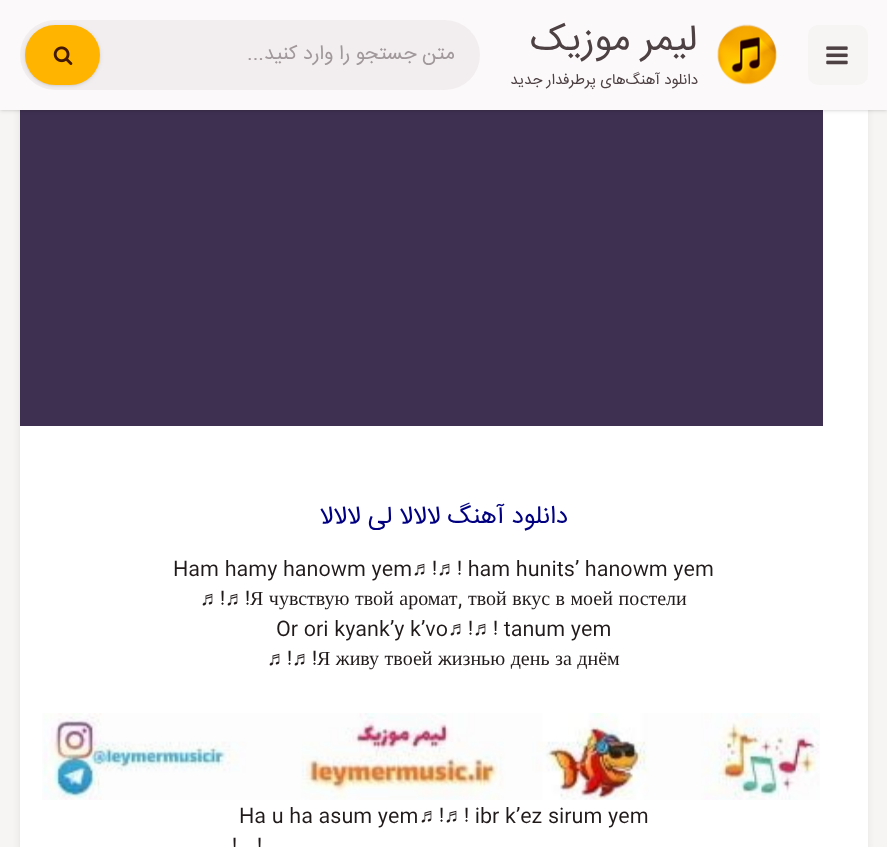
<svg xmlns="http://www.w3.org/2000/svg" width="887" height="847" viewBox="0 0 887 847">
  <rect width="100%" height="100%" fill="#f7f4f4"/>
  <rect x="21" y="-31" width="845" height="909" rx="19" fill="#0000001a" filter="blur(4px)"/>
  <path d="M20 110h848v737H20z" fill="#fff"/>
  <path d="M20 110h803v316H20z" fill="#3e3050"/>
  <path d="M1 3h885v107H1z" fill="#0000001a" filter="blur(1px)"/>
  <path d="M0 1h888v110H0z" fill="#0000001a" filter="blur(2px)"/>
  <path d="M0 0h887v110H0z" fill="#fbf9fa"/>
  <rect x="20" y="20" width="460" height="70" rx="35" fill="#f2eeef"/>
  <rect x="26" y="28" width="73" height="57" rx="28.5" fill="#0000001a" filter="blur(1px)"/>
  <rect x="25" y="26" width="75" height="60" rx="30" fill="#0000001a" filter="blur(2px)"/>
  <rect x="25" y="25" width="75" height="60" rx="30" fill="#ffb500"/>
  <image x="53" y="46" width="20" height="19" href="img/1.png"/>
  <image x="717" y="24" width="60" height="61" href="img/2.png"/>
  <rect x="808" y="25" width="60" height="60" rx="10" fill="#f7f4f4"/>
  <image x="826" y="46" width="22" height="19" href="img/3.png"/>
  <image x="42" y="713" width="778" height="87" href="img/4.png"/>
  <text x="455" y="59" font-family="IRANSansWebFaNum" font-size="20" direction="rtl" fill="#a0989a">متن جستجو را وارد کنید...</text>
  <text x="697" y="50" font-family="IRANSansWebFaNum" font-size="37.5" direction="rtl" fill="#4e4144">لیمر موزیک</text>
  <text x="698" y="84" font-family="IRANSansWebFaNum" font-size="15" direction="rtl" fill="#4e4144">دانلود آهنگ‌های پرطرفدار جدید</text>
  <text x="568" y="523" font-family="IRANSansWebFaNum" font-size="25" direction="rtl" fill="#000080">دانلود آهنگ لالالا لی لالالا</text>
  <g font-family="IRANSansWebFaNum" font-size="20" fill="#211a1b">
    <text x="173" y="575">Ham hamy hanowm yem</text>
    <text x="457" y="575">! ham hunits’ hanowm yem</text>
  </g>
  <text x="412" y="575" font-family="Liberation Serif" font-size="20" fill="#211a1b">♬ ♬</text>
  <g font-family="IRANSansWebFaNum" font-size="20" fill="#211a1b">
    <text x="432" y="575">!</text>
    <text x="245" y="605">!</text>
  </g>
  <g font-family="Liberation Serif" font-size="20" fill="#211a1b">
    <text x="250" y="605" word-spacing="0.5">Я чувствую твой аромат</text>
    <text x="468" y="605" word-spacing="0.5">твой вкус в моей постели</text>
    <text x="200" y="605">♬ ♬</text>
  </g>
  <g font-family="IRANSansWebFaNum" font-size="20" fill="#211a1b">
    <text x="220" y="605">!</text>
    <text x="458" y="605">,</text>
    <text x="276" y="635">Or ori kyank’y k’vo</text>
    <text x="493" y="635">! tanum yem</text>
  </g>
  <text x="448" y="635" font-family="Liberation Serif" font-size="20" fill="#211a1b">♬ ♬</text>
  <g font-family="IRANSansWebFaNum" font-size="20" fill="#211a1b">
    <text x="468" y="635">!</text>
    <text x="312" y="665">!</text>
  </g>
  <g font-family="Liberation Serif" font-size="20" fill="#211a1b">
    <text x="317" y="665" word-spacing="0.5">Я живу твоей жизнью день за днём</text>
    <text x="267" y="665">♬ ♬</text>
  </g>
  <g font-family="IRANSansWebFaNum" font-size="20" fill="#211a1b">
    <text x="287" y="665">!</text>
    <text x="239" y="822">Ha u ha asum yem</text>
    <text x="464" y="822">! ibr k’ez sirum yem</text>
  </g>
  <text x="419" y="822" font-family="Liberation Serif" font-size="20" fill="#211a1b">♬ ♬</text>
  <g font-family="IRANSansWebFaNum" font-size="20" fill="#211a1b">
    <text x="439" y="822">!</text>
    <text x="232" y="852">!</text>
    <text x="257" y="852">!</text>
  </g>
</svg>
